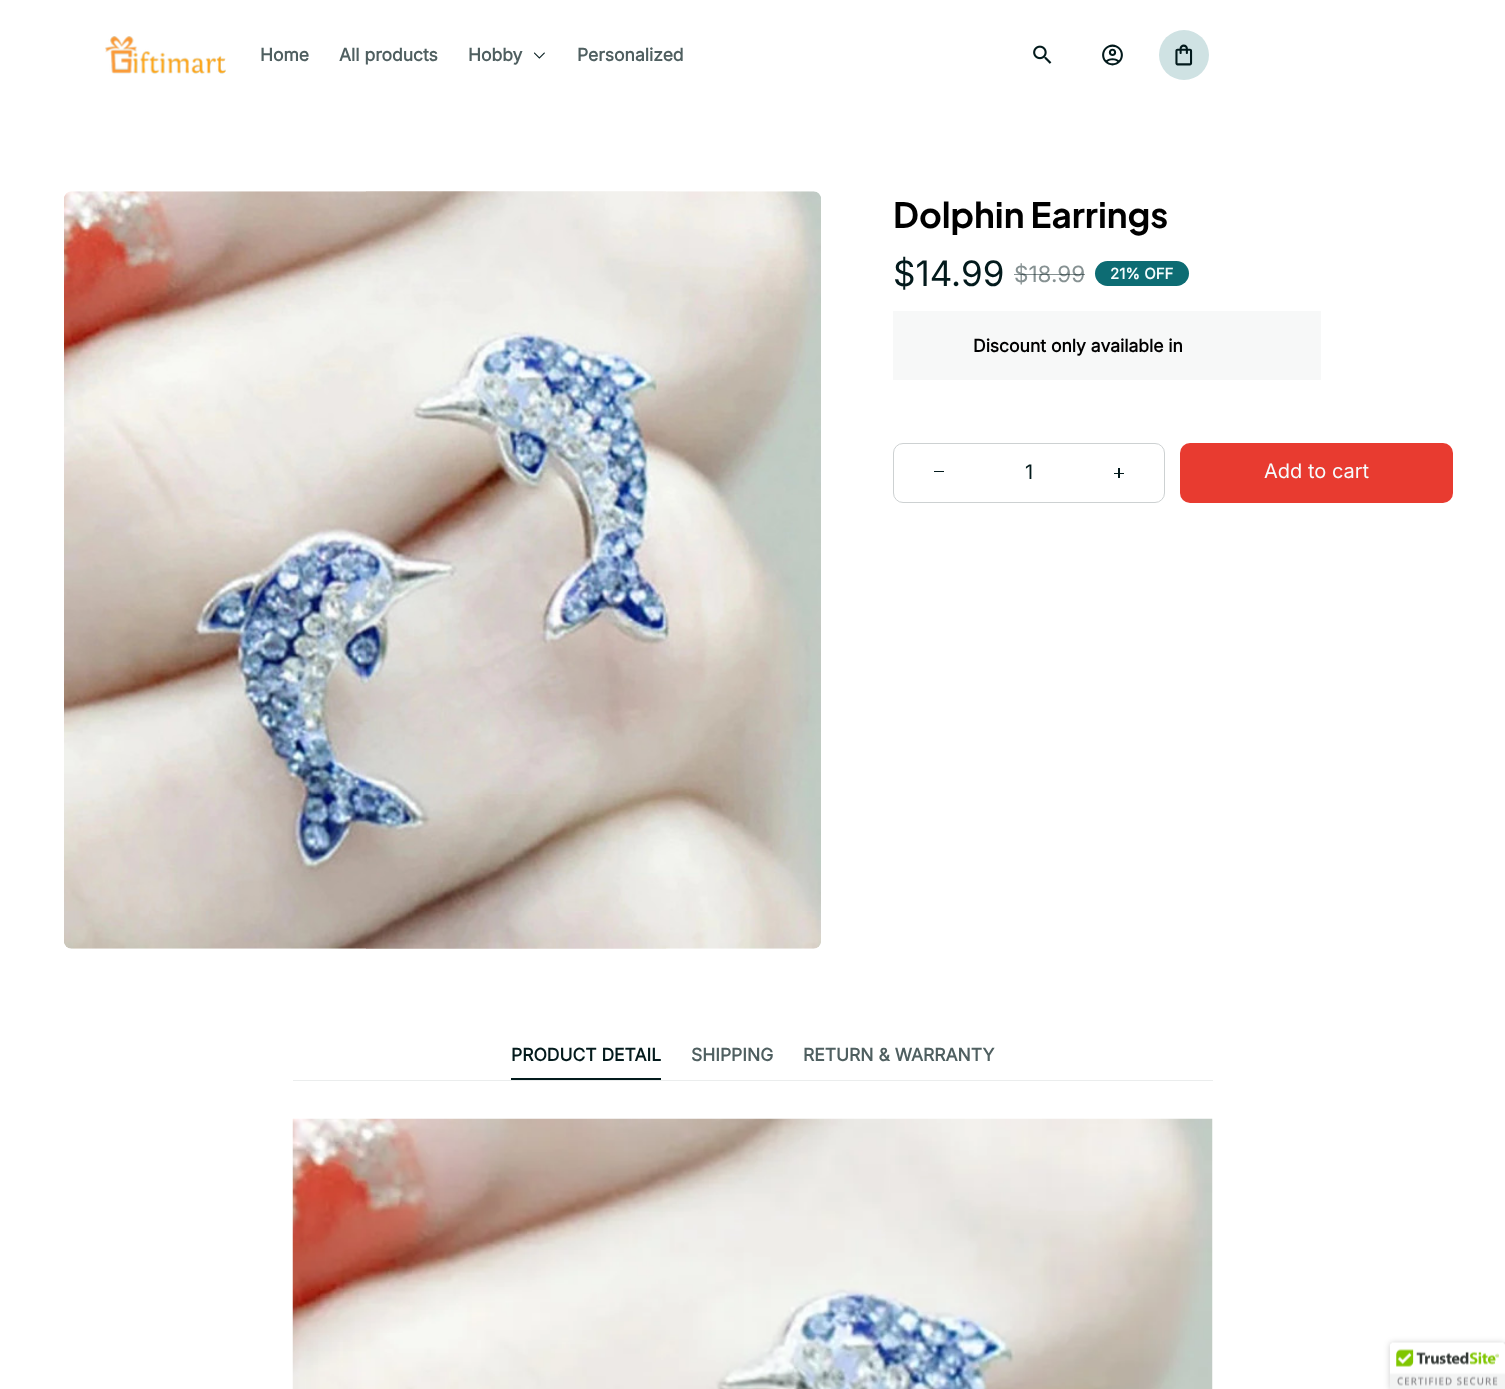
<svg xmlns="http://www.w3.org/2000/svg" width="1505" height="1389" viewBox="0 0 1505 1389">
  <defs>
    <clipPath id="clip1"><path d="M511 1030h150v50H511z"/></clipPath>
  </defs>
  <rect width="100%" height="100%" fill="#fff"/>
  <image x="105" y="36" width="121" height="38" href="img/1.png"/>
  <image x="534" y="52" width="11" height="7" href="img/2.png"/>
  <image x="1033" y="45" width="19" height="19" href="img/3.png"/>
  <image x="1102" y="44" width="21" height="22" href="img/4.png"/>
  <circle cx="1184" cy="55" r="25" fill="#cfe2e3"/>
  <image x="1175" y="44" width="18" height="22" href="img/5.png"/>
  <image x="64" y="191" width="757" height="758" href="img/6.png"/>
  <rect x="1095" y="261" width="94" height="25" rx="12.5" fill="#0d6c73"/>
  <path d="M893 311h428v69H893z" fill="#f7f8f8"/>
  <rect x="893.5" y="443.5" width="271" height="59" rx="9.5" fill="none" stroke="#cdd1d2"/>
  <path d="M934 471h10v1H934z" fill="#031a1c"/>
  <path d="M1114 473h10v1H1114z" fill="#031a1c"/>
  <path d="M1118 468h2v10H1118z" fill="#031a1c"/>
  <rect x="1180" y="443" width="273" height="60" rx="10" fill="#e83b30"/>
  <g clip-path="url(#clip1)">
    <path d="M388 906H785V1204H388ZM511 1022H661C663 1022 664 1024 664 1025V1075C664 1076 663 1078 661 1078H511C510 1078 509 1076 509 1075V1025C509 1024 510 1022 511 1022Z" fill="#031a1c" fill-rule="evenodd"/>
  </g>
  <path d="M293 1080h920v1H293z" fill="#ebeded"/>
  <image x="292" y="1118" width="921" height="271" href="img/7.png"/>
  <rect x="1390" y="1343" width="115" height="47" rx="2.5" fill="#00000033" filter="blur(3px)"/>
  <image x="1390" y="1342" width="115" height="47" href="img/8.png"/>
  <g font-family="Inter" font-size="17.5" font-weight="bold" fill="#4f5f60">
    <text x="260" y="61">Home</text>
    <text x="339" y="61">All products</text>
    <text x="468" y="61">Hobby</text>
    <text x="577" y="61">Personalized</text>
  </g>
  <text x="893" y="228" font-family="Plus Jakarta Sans" font-size="35" font-weight="bold" fill="#000">Dolphin Earrings</text>
  <text x="893" y="286" font-family="Inter" font-size="35" fill="#031a1c">$14.99</text>
  <text x="1014" y="282" font-family="Inter" font-size="22.5" fill="#869192">$18.99</text>
  <path d="M1014 274h71v1H1014z" fill="#031a1c7a"/>
  <text x="1110" y="279" font-family="Inter" font-size="15" font-weight="bold" fill="#f6fdfe">21% OFF</text>
  <text x="973" y="352" font-family="Inter" font-size="17.5" font-weight="bold" fill="#000">Discount only available in</text>
  <text x="1025" y="479" font-family="Inter" font-size="20" fill="#031a1c">1</text>
  <text x="1264" y="478" font-family="Inter" font-size="20" fill="#f6fdfe">Add to cart</text>
  <text x="511" y="1061" font-family="Inter" font-size="17.5" font-weight="bold" fill="#031a1c">PRODUCT DETAIL</text>
  <g font-family="Inter" font-size="17.5" font-weight="bold" fill="#4f5f60">
    <text x="691" y="1061">SHIPPING</text>
    <text x="803" y="1061">RETURN &amp; WARRANTY</text>
  </g>
</svg>
